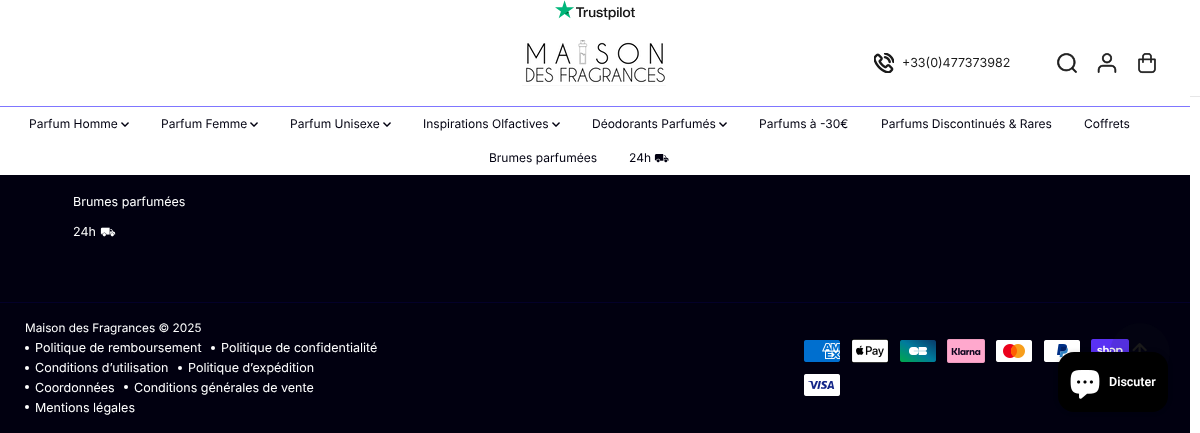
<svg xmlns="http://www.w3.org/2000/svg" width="1200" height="433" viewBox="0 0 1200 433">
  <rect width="100%" height="100%" fill="#010010"/>
  <path d="M0 0h1190v175H0z" fill="#fff"/>
  <image x="555" y="0" width="80" height="20" href="img/1.png"/>
  <image x="522" y="40" width="144" height="46" href="img/2.png"/>
  <image x="874" y="53" width="20" height="20" href="img/3.png"/>
  <image x="1057" y="53" width="20" height="20" href="img/4.png"/>
  <image x="1097" y="53" width="20" height="20" href="img/5.png"/>
  <image x="1138" y="53" width="18" height="21" href="img/6.png"/>
  <path d="M0 106h1190v1H0z" fill="#7f76ff"/>
  <image x="121" y="122" width="8" height="5" href="img/7.png"/>
  <image x="250" y="122" width="8" height="5" href="img/7.png"/>
  <image x="383" y="122" width="8" height="5" href="img/7.png"/>
  <image x="552" y="122" width="8" height="5" href="img/7.png"/>
  <image x="719" y="122" width="8" height="5" href="img/7.png"/>
  <path d="M1190 0h10v433H1190z" fill="#fff"/>
  <path d="M1190 96h10v1H1190z" fill="#e6e6e7"/>
  <path d="M0 302h1190v1H0z" fill="#030029"/>
  <circle cx="27" cy="348" r="2" fill="#fff"/>
  <circle cx="213" cy="348" r="2" fill="#fff"/>
  <circle cx="27" cy="368" r="2" fill="#fff"/>
  <circle cx="180" cy="368" r="2" fill="#fff"/>
  <circle cx="27" cy="387" r="2" fill="#fff"/>
  <circle cx="126" cy="387" r="2" fill="#fff"/>
  <circle cx="27" cy="407" r="2" fill="#fff"/>
  <image x="804" y="340" width="36" height="22" href="img/8.png"/>
  <image x="851" y="339" width="38" height="24" href="img/9.png"/>
  <image x="900" y="340" width="36" height="22" href="img/10.png"/>
  <image x="947" y="339" width="38" height="24" href="img/11.png"/>
  <image x="996" y="340" width="36" height="22" href="img/12.png"/>
  <image x="1044" y="340" width="36" height="22" href="img/13.png"/>
  <image x="1091" y="339" width="38" height="13" href="img/14.png"/>
  <image x="804" y="374" width="36" height="22" href="img/15.png"/>
  <circle cx="1140" cy="353" r="30" fill="#1a1a1a1a"/>
  <image x="1132" y="343" width="15" height="9" href="img/16.png"/>
  <rect x="1058" y="352" width="110" height="60" rx="16" fill="#00000026" filter="blur(2.5px)"/>
  <rect x="1058" y="352" width="110" height="60" rx="16" fill="#000"/>
  <image x="1070" y="370" width="30" height="29" href="img/17.png"/>
  <text x="902" y="67" font-family="Inter" font-size="12.5" fill="#1a1a1a">+33(0)477373982</text>
  <g font-family="Inter" font-size="12" fill="#010010">
    <text x="29" y="128">Parfum Homme</text>
    <text x="161" y="128">Parfum Femme</text>
    <text x="290" y="128">Parfum Unisexe</text>
    <text x="423" y="128">Inspirations Olfactives</text>
    <text x="592" y="128">Déodorants Parfumés</text>
    <text x="759" y="128">Parfums à -30€</text>
    <text x="881" y="128">Parfums Discontinués &amp; Rares</text>
    <text x="1084" y="128">Coffrets</text>
    <text x="489" y="162">Brumes parfumées</text>
    <text x="629" y="162">24h</text>
  </g>
  <text x="654" y="162" font-family="STIX Two Math" font-size="12" fill="#010010">⛟</text>
  <g font-family="Inter" font-size="12.5" fill="#fff">
    <text x="73" y="206">Brumes parfumées</text>
    <text x="73" y="236">24h</text>
  </g>
  <text x="100" y="236" font-family="STIX Two Math" font-size="12.5" fill="#fff">⛟</text>
  <text x="25" y="332" font-family="Inter" font-size="11.8" fill="#fff">Maison des Fragrances © 2025</text>
  <g font-family="Inter" font-size="12.5" fill="#fff">
    <text x="35" y="352">Politique de remboursement</text>
    <text x="221" y="352">Politique de confidentialité</text>
    <text x="35" y="372">Conditions d’utilisation</text>
    <text x="188" y="372">Politique d’expédition</text>
    <text x="35" y="392">Coordonnées</text>
    <text x="134" y="392">Conditions générales de vente</text>
    <text x="35" y="412">Mentions légales</text>
  </g>
  <text x="1109" y="386" font-family="Roboto" font-size="12.5" font-weight="600" fill="#fff">Discuter</text>
</svg>
